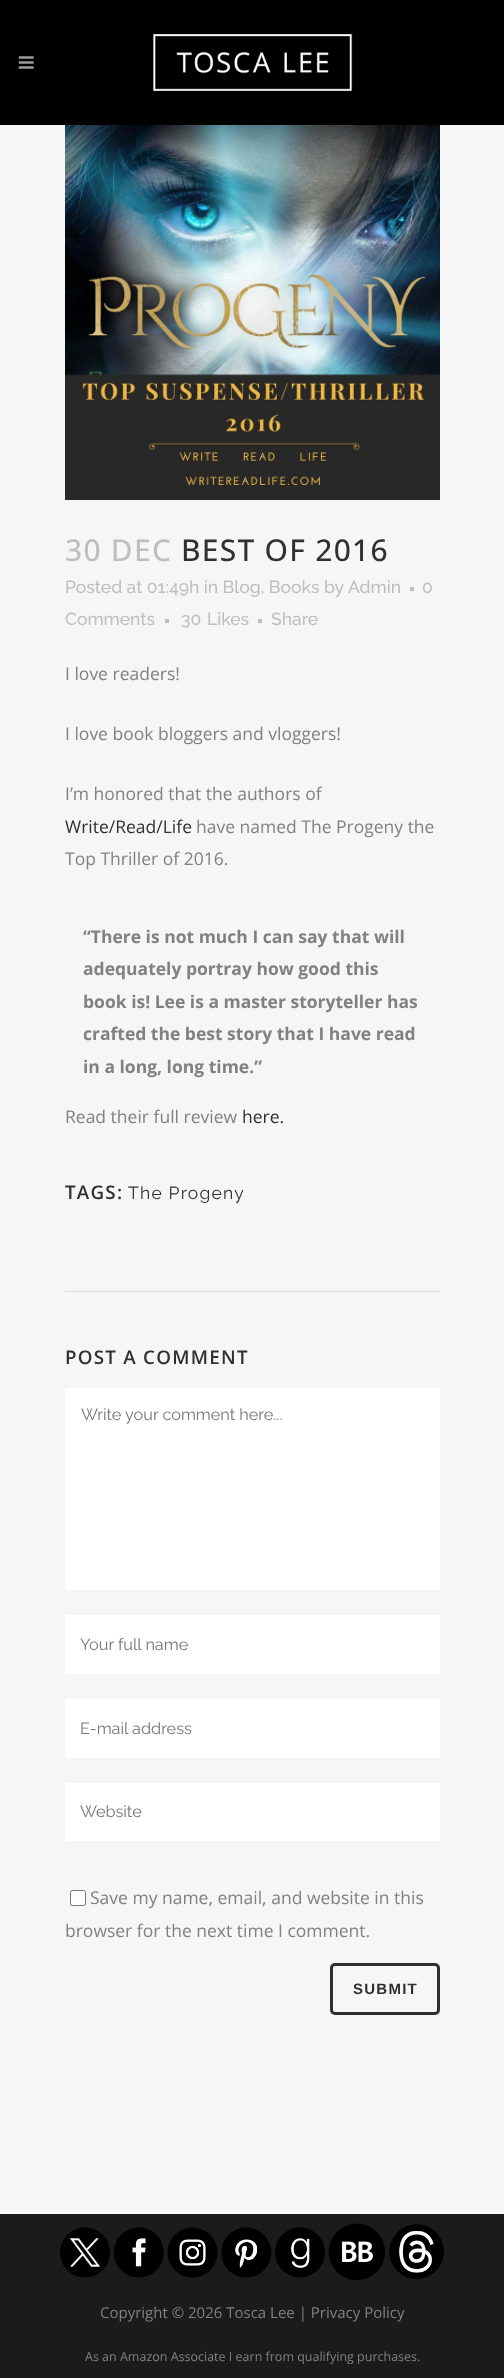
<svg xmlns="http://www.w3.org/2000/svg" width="504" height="2378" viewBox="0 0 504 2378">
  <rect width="100%" height="100%" fill="#f6f6f6"/>
  <path d="M0 0h504v125H0z" fill="#000"/>
  <image x="18" y="56" width="16" height="13" href="img/1.png"/>
  <image x="153" y="34" width="200" height="57" href="img/2.png"/>
  <image x="65" y="125" width="375" height="375" href="img/3.png"/>
  <path d="M410 587h4v4H410z" fill="#bebebe"/>
  <path d="M165 619h4v4H165z" fill="#bebebe"/>
  <path d="M258 619h4v4H258z" fill="#bebebe"/>
  <path d="M65 1291h375v1H65z" fill="#ddd"/>
  <path d="M65 1388h375v202H65z" fill="#fff"/>
  <path d="M65 1615h375v59H65z" fill="#fff"/>
  <path d="M65 1699h375v59H65z" fill="#fff"/>
  <path d="M65 1783h375v58H65z" fill="#fff"/>
  <rect x="70.5" y="1890.5" width="15" height="15" rx="2" fill="#fff" stroke="#767676"/>
  <rect x="331.5" y="1964.5" width="107" height="49" rx="3.5" fill="none" stroke="#303030" stroke-width="3"/>
  <path d="M0 2214h504v164H0z" fill="#1b1b1b"/>
  <image x="60" y="2227" width="50" height="51" href="img/4.png"/>
  <image x="113" y="2227" width="51" height="51" href="img/5.png"/>
  <image x="167" y="2227" width="51" height="51" href="img/6.png"/>
  <image x="221" y="2227" width="51" height="51" href="img/7.png"/>
  <image x="275" y="2227" width="50" height="51" href="img/8.png"/>
  <image x="328" y="2223" width="57" height="57" href="img/9.png"/>
  <image x="389" y="2224" width="55" height="55" href="img/10.png"/>
  <text x="65" y="561" font-family="Open Sans" font-size="30" font-weight="500" letter-spacing="1.25" fill="#bebebe">30 DEC</text>
  <text x="181" y="561" font-family="Open Sans" font-size="30" font-weight="500" letter-spacing="1.25" fill="#303030">BEST OF 2016</text>
  <g font-family="Raleway" font-size="17.5" font-weight="500" fill="#bebebe">
    <text x="65" y="593">Posted at 01:49h in Blog, Books by</text>
    <text x="348" y="593">Admin</text>
    <text x="422" y="593">0</text>
    <text x="65" y="625">Comments</text>
    <text x="181" y="625">30</text>
    <text x="207" y="625">Likes</text>
    <text x="271" y="625">Share</text>
  </g>
  <g font-family="Open Sans" font-size="17.5" fill="#818181">
    <text x="65" y="680">I love readers!</text>
    <text x="65" y="740">I love book bloggers and vloggers!</text>
    <text x="65" y="800">I’m honored that the authors of</text>
  </g>
  <text x="65" y="833" font-family="Open Sans" font-size="17.5" fill="#303030">Write/Read/Life</text>
  <g font-family="Open Sans" font-size="17.5" fill="#818181">
    <text x="196" y="833">have named The Progeny the</text>
    <text x="65" y="865">Top Thriller of 2016.</text>
  </g>
  <g font-family="Open Sans" font-size="17.5" font-weight="bold" fill="#818181">
    <text x="83" y="943">“There is not much I can say that will</text>
    <text x="83" y="975">adequately portray how good this</text>
    <text x="83" y="1008">book is! Lee is a master storyteller has</text>
    <text x="83" y="1040">crafted the best story that I have read</text>
    <text x="83" y="1073">in a long, long time.”</text>
  </g>
  <text x="65" y="1123" font-family="Open Sans" font-size="17.5" fill="#818181">Read their full review</text>
  <text x="242" y="1123" font-family="Open Sans" font-size="17.5" fill="#303030">here.</text>
  <text x="65" y="1199" font-family="Open Sans" font-size="18.75" font-weight="600" letter-spacing="1.25" fill="#303030">TAGS:</text>
  <text x="128" y="1199" font-family="Raleway" font-size="17.5" letter-spacing="1.25" fill="#303030">The Progeny</text>
  <text x="65" y="1364" font-family="Open Sans" font-size="18.75" font-weight="600" letter-spacing="1.25" fill="#303030">POST A COMMENT</text>
  <g font-family="Raleway" font-size="16.25" fill="#757575">
    <text x="81" y="1420">Write your comment here...</text>
    <text x="80" y="1650">Your full name</text>
    <text x="80" y="1734">E-mail address</text>
    <text x="80" y="1817">Website</text>
  </g>
  <g font-family="Open Sans" font-size="17.5" fill="#818181">
    <text x="90" y="1904">Save my name, email, and website in this</text>
    <text x="65" y="1937">browser for the next time I comment.</text>
  </g>
  <text x="353" y="1994" font-family="Liberation Sans" font-size="15" font-weight="bold" letter-spacing="1.25" fill="#303030">SUBMIT</text>
  <text x="100" y="2318" font-family="Open Sans" font-size="15" fill="#818181">Copyright © 2026 Tosca Lee | Privacy Policy</text>
  <text x="85" y="2361" font-family="Open Sans" font-size="12.5" fill="#818181">As an Amazon Associate I earn from qualifying purchases.</text>
</svg>
